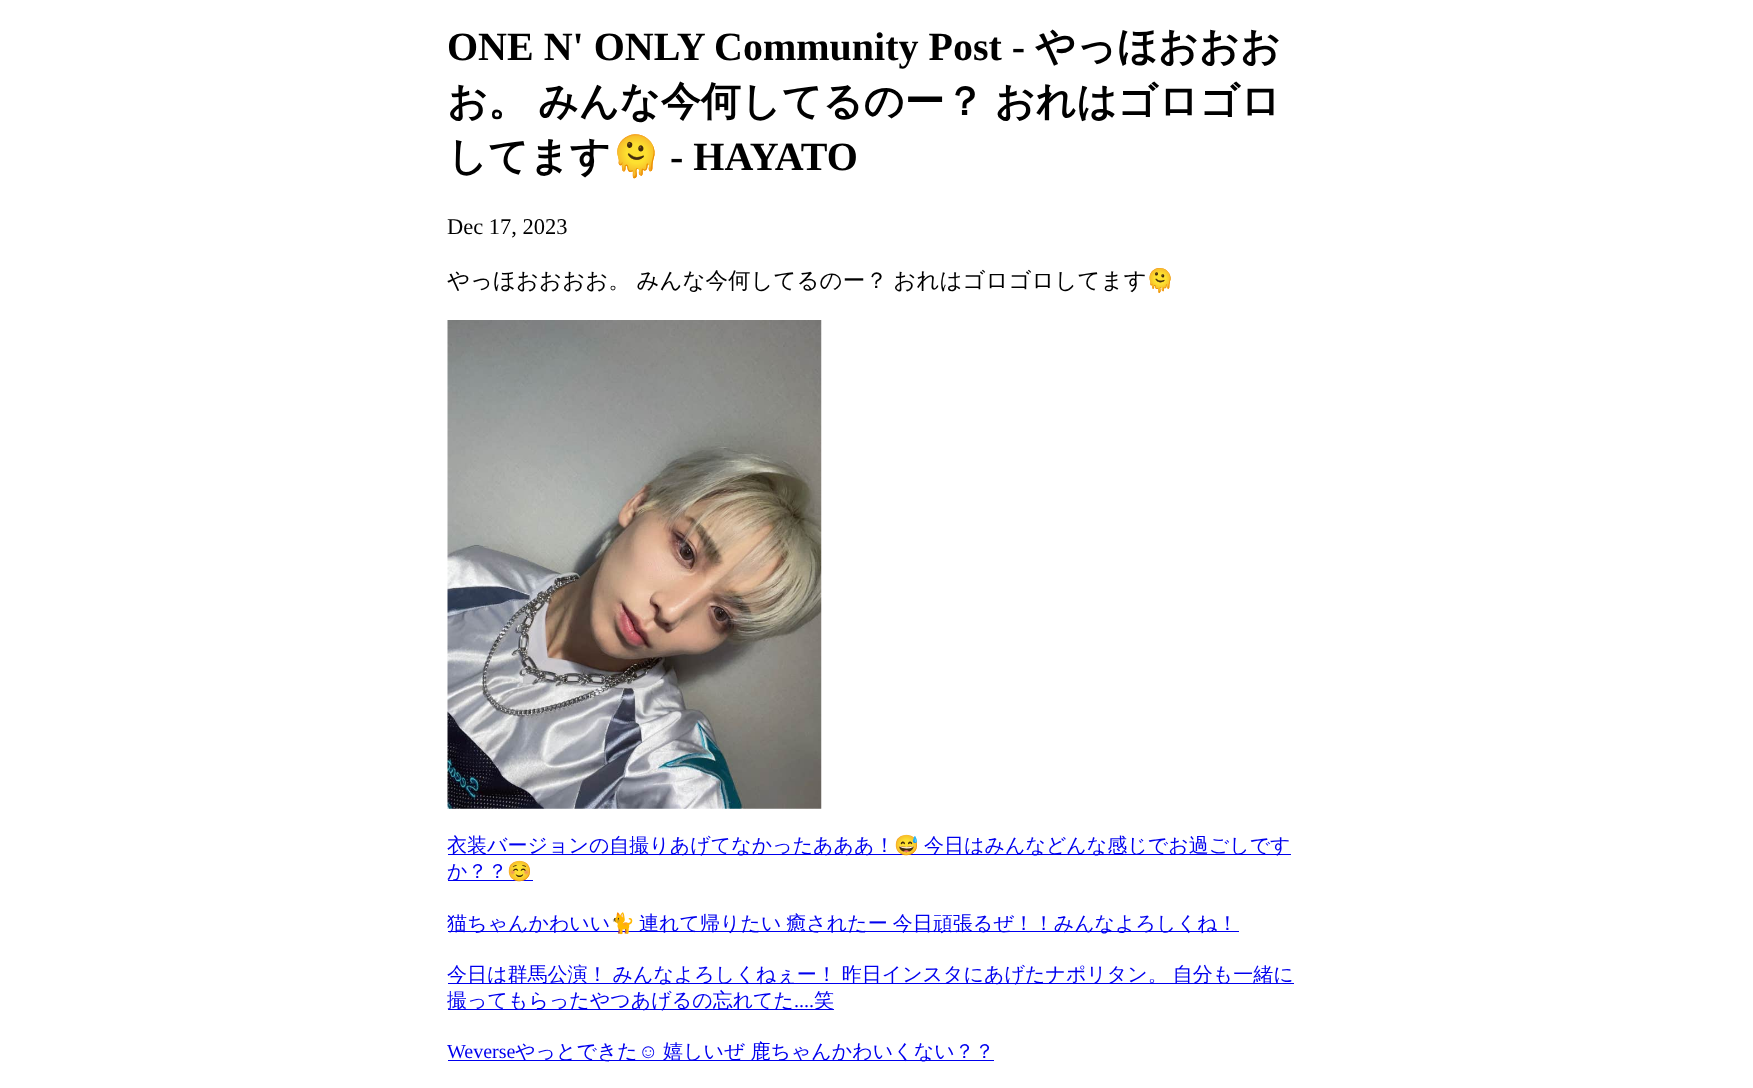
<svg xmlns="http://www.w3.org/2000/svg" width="1753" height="1088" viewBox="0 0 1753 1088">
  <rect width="100%" height="100%" fill="#fff"/>
  <image x="447" y="320" width="375" height="489" href="img/1.png"/>
  <path d="M448 854h843v1H448z" fill="#00e"/>
  <path d="M448 880h85v1H448z" fill="#00e"/>
  <path d="M448 931h791v1H448z" fill="#00e"/>
  <path d="M448 983h846v1H448z" fill="#00e"/>
  <path d="M448 1009h386v1H448z" fill="#00e"/>
  <path d="M448 1060h546v1H448z" fill="#00e"/>
  <text x="447" y="60" font-family="Liberation Serif" font-size="40" font-weight="bold" fill="#000">ONE N' ONLY Community Post -</text>
  <g font-family="WenQuanYi Zen Hei" font-size="40" font-weight="bold" fill="#000">
    <text x="1035" y="60">やっほおおお</text>
    <text x="447" y="115" word-spacing="-2">お。 みんな今何してるのー？ おれはゴロゴロ</text>
    <text x="447" y="170">してます</text>
  </g>
  <text x="611" y="170" font-family="Noto Color Emoji" font-size="40" font-weight="bold" fill="#000">🫠</text>
  <text x="670" y="170" font-family="Liberation Serif" font-size="40" font-weight="bold" fill="#000">- HAYATO</text>
  <text x="447" y="234" font-family="Liberation Serif" font-size="22.5" fill="#000">Dec 17, 2023</text>
  <text x="447" y="288" word-spacing="-1" font-family="WenQuanYi Zen Hei" font-size="22.5" font-weight="500" fill="#000">やっほおおおお。 みんな今何してるのー？ おれはゴロゴロしてます</text>
  <text x="1146" y="288" font-family="Noto Color Emoji" font-size="22.5" fill="#000">🫠</text>
  <text x="447" y="852" font-family="WenQuanYi Zen Hei" font-size="20" font-weight="500" fill="#00e">衣装バージョンの自撮りあげてなかったあああ！</text>
  <text x="894" y="852" font-family="Noto Color Emoji" font-size="20" fill="#00e">😅</text>
  <g font-family="WenQuanYi Zen Hei" font-size="20" font-weight="500" fill="#00e">
    <text x="924" y="852">今日はみんなどんな感じでお過ごしです</text>
    <text x="447" y="878">か？？</text>
  </g>
  <text x="507" y="878" font-family="Noto Color Emoji" font-size="20" fill="#00e">☺️</text>
  <text x="447" y="930" font-family="WenQuanYi Zen Hei" font-size="20" font-weight="500" fill="#00e">猫ちゃんかわいい</text>
  <text x="610" y="930" font-family="Noto Color Emoji" font-size="20" fill="#00e">🐈</text>
  <g font-family="WenQuanYi Zen Hei" font-size="20" font-weight="500" fill="#00e">
    <text x="639" y="930" word-spacing="-1">連れて帰りたい 癒されたー 今日頑張るぜ！！みんなよろしくね！</text>
    <text x="447" y="981" word-spacing="-1">今日は群馬公演！ みんなよろしくねぇー！ 昨日インスタにあげたナポリタン。 自分も一緒に</text>
    <text x="447" y="1007">撮ってもらったやつあげるの忘れてた</text>
  </g>
  <text x="794" y="1007" font-family="Liberation Serif" font-size="20" fill="#00e">....</text>
  <text x="814" y="1007" font-family="WenQuanYi Zen Hei" font-size="20" font-weight="500" fill="#00e">笑</text>
  <text x="447" y="1058" font-family="Liberation Serif" font-size="20" fill="#00e">Weverse</text>
  <text x="515" y="1058" font-family="WenQuanYi Zen Hei" font-size="20" font-weight="500" fill="#00e">やっとできた</text>
  <text x="638" y="1058" font-family="Liberation Serif" font-size="20" fill="#00e">☺︎</text>
  <text x="663" y="1058" font-family="WenQuanYi Zen Hei" font-size="20" font-weight="500" fill="#00e">嬉しいぜ 鹿ちゃんかわいくない？？</text>
</svg>
